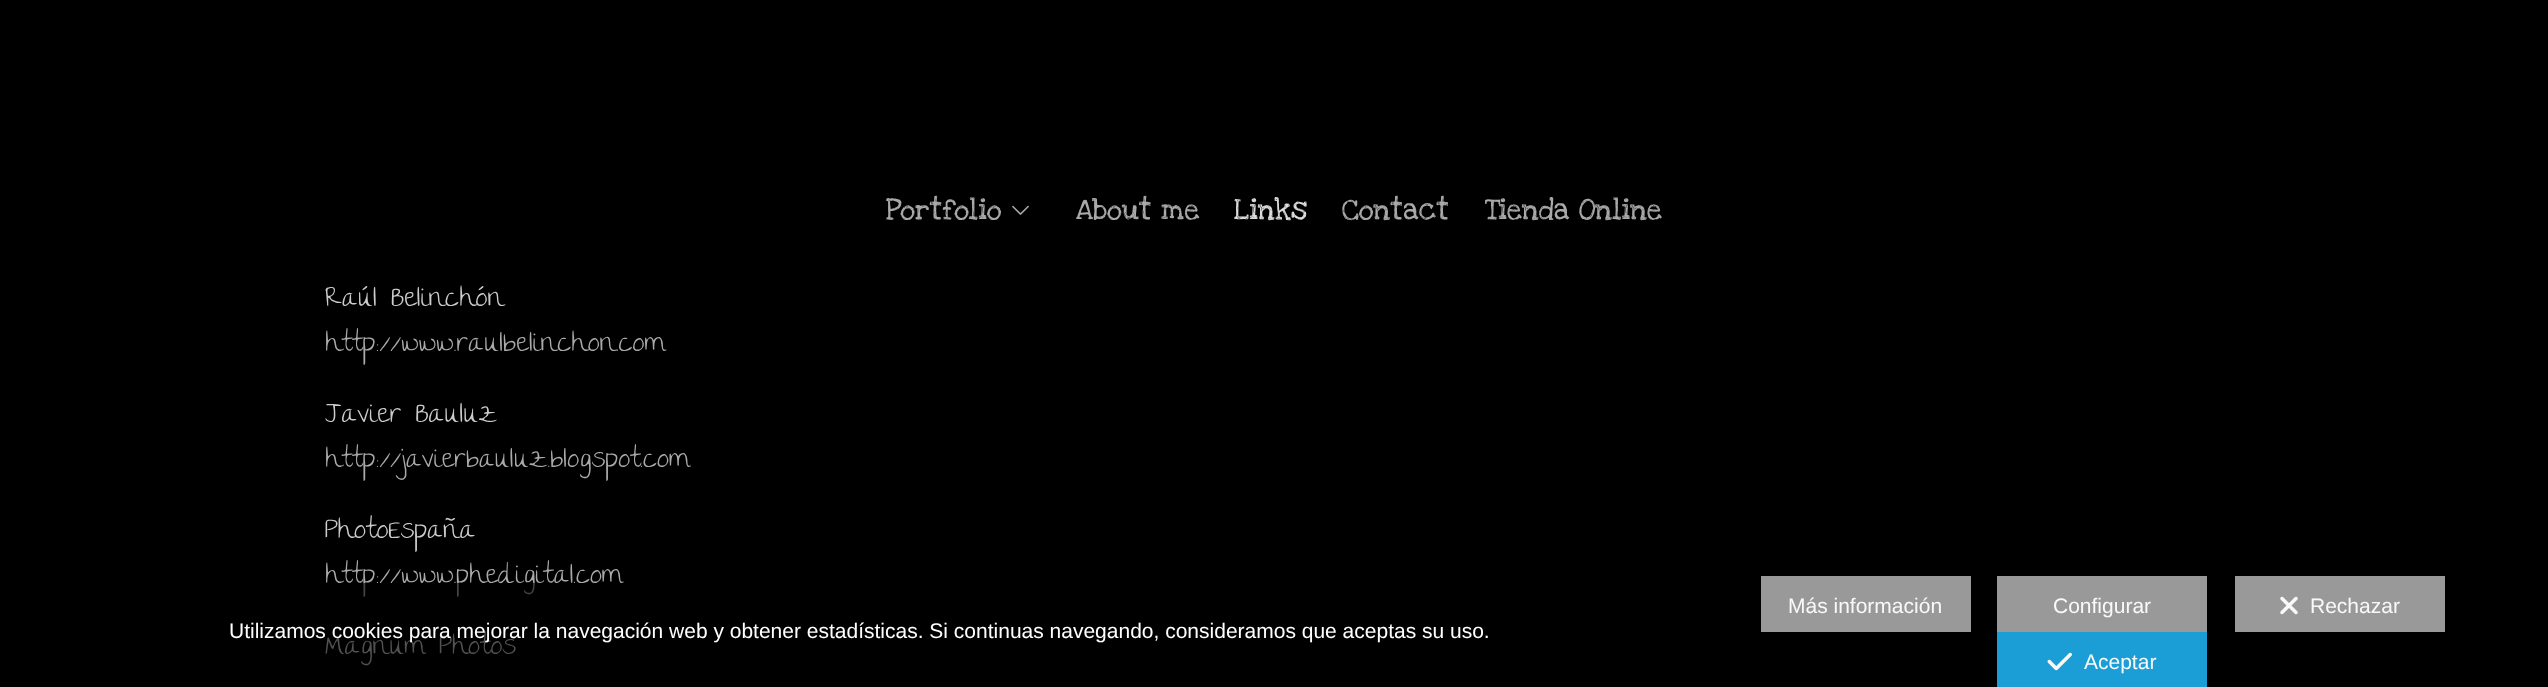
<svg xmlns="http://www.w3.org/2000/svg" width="2548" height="687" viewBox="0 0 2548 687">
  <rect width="100%" height="100%" fill="#000"/>
  <image x="1012" y="205" width="17" height="10" href="img/1.png"/>
  <path d="M1761 576h210v56H1761z" fill="#999"/>
  <path d="M1997 576h210v56H1997z" fill="#999"/>
  <path d="M2235 576h210v56H2235z" fill="#999"/>
  <image x="2280" y="596" width="18" height="19" href="img/2.png"/>
  <path d="M1997 632h210v55H1997z" fill="#1a9ed5"/>
  <image x="2047" y="652" width="25" height="19" href="img/3.png"/>
  <g font-family="Love Ya Like A Sister" font-size="29.75" fill="#aaa">
    <text x="886" y="219">Portfolio</text>
    <text x="1076" y="219">About me</text>
  </g>
  <text x="1234" y="219" font-family="Love Ya Like A Sister" font-size="29.75" fill="#ddd">Links</text>
  <g font-family="Love Ya Like A Sister" font-size="29.75" fill="#aaa">
    <text x="1342" y="219">Contact</text>
    <text x="1485" y="219">Tienda Online</text>
  </g>
  <text x="325" y="306" font-family="The Girl Next Door" font-size="28" fill="#ccc">Raúl Belinchón</text>
  <text x="325" y="351" font-family="The Girl Next Door" font-size="28" fill="#aaa">http://www.raulbelinchon.com</text>
  <text x="325" y="422" font-family="The Girl Next Door" font-size="28" fill="#ccc">Javier Bauluz</text>
  <text x="325" y="467" font-family="The Girl Next Door" font-size="28" fill="#aaa">http://javierbauluz.blogspot.com</text>
  <text x="325" y="538" font-family="The Girl Next Door" font-size="28" fill="#ccc">PhotoEspaña</text>
  <text x="325" y="583" font-family="The Girl Next Door" font-size="28" fill="#aaa">http://www.phedigital.com</text>
  <text x="325" y="654" font-family="The Girl Next Door" font-size="28" fill="#ccc">Magnum Photos</text>
  <path d="M325 583h210v83H325z" fill="#00000099"/>
  <text x="229" y="638" font-family="Liberation Sans" font-size="21" fill="#fff">Utilizamos cookies para mejorar la navegación web y obtener estadísticas. Si continuas navegando, consideramos que aceptas su uso.</text>
  <g font-family="Liberation Sans" font-size="21" fill="#f9f9f9">
    <text x="1788" y="613">Más información</text>
    <text x="2053" y="613">Configurar</text>
    <text x="2310" y="613">Rechazar</text>
    <text x="2084" y="669">Aceptar</text>
  </g>
</svg>
